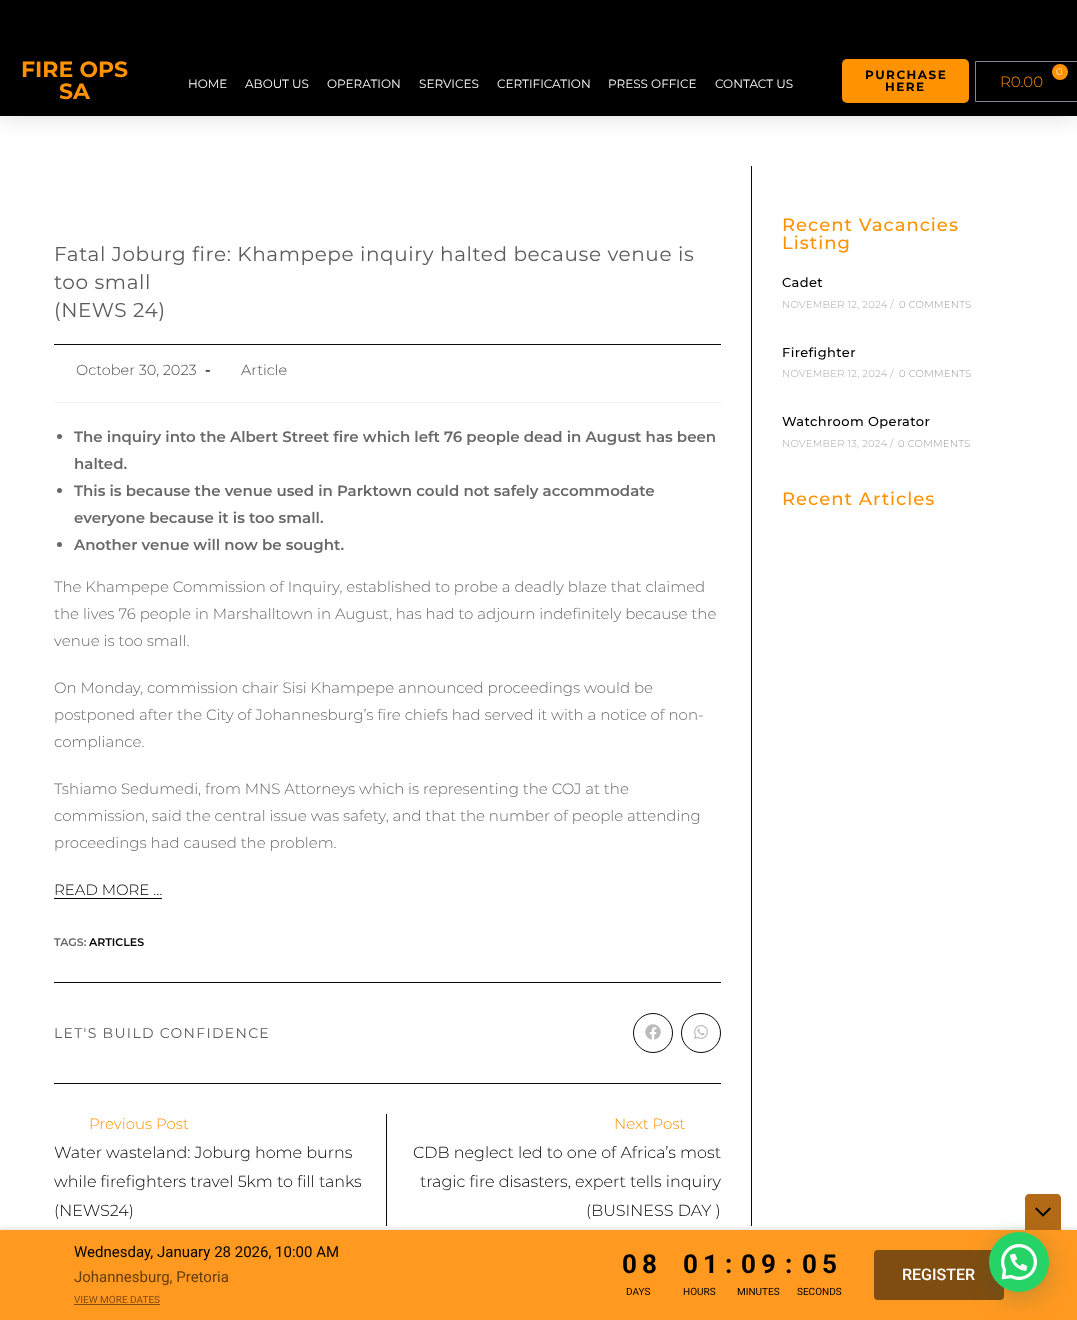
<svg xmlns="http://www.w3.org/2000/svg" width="1077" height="1320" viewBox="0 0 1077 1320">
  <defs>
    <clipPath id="clip1"><path d="M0 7H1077V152H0ZM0 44H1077V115H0Z" clip-rule="evenodd"/></clipPath>
  </defs>
  <rect width="100%" height="100%" fill="#fff"/>
  <path d="M0 0h1077v116H0z" fill="#000"/>
  <g clip-path="url(#clip1)">
    <path d="M0 44h1077v71H0z" fill="#00000026" filter="blur(12px)"/>
  </g>
  <rect x="842" y="59" width="127" height="44" rx="5" fill="#ff9200"/>
  <path d="M975.5 61.5h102v40H975.5z" fill="none" stroke="#818a91"/>
  <circle cx="1060" cy="72" r="8" fill="#ff9200"/>
  <path d="M751 166h1v1060H751z" fill="#0a0a0a"/>
  <path d="M54 344h667v1H54z" fill="#0a0a0a"/>
  <path d="M54 402h667v1H54z" fill="#f1f1f1"/>
  <circle cx="59.5" cy="436.5" r="2.5" fill="#686868"/>
  <circle cx="59.5" cy="490.5" r="2.5" fill="#686868"/>
  <circle cx="59.5" cy="544.5" r="2.5" fill="#686868"/>
  <path d="M54 898h108v1H54z" fill="#000"/>
  <path d="M54 982h667v1H54z" fill="#0a0a0a"/>
  <circle cx="653" cy="1033" r="19.5" fill="none" stroke="#0a0a0a"/>
  <image x="645" y="1024" width="16" height="16" href="img/1.png"/>
  <circle cx="701" cy="1033" r="19.5" fill="none" stroke="#0a0a0a"/>
  <image x="694" y="1025" width="14" height="14" href="img/2.png"/>
  <path d="M54 1083h667v1H54z" fill="#0a0a0a"/>
  <path d="M386 1114h1v112H386z" fill="#0a0a0a"/>
  <path d="M0 1228h1077v90H0z" fill="#0000001a" filter="blur(2px)"/>
  <path d="M1029 1194H1057C1059 1194 1061 1196 1061 1198V1230H1025V1198C1025 1196 1027 1194 1029 1194Z" fill="#ff9920"/>
  <path d="M1029 1194H1057C1059 1194 1061 1196 1061 1198V1230H1025V1198C1025 1196 1027 1194 1029 1194Z" fill="#0000004d"/>
  <image x="1035" y="1207" width="16" height="10" href="img/3.png"/>
  <path d="M0 1230h1077v90H0z" fill="#ff9920"/>
  <path d="M74 1304h86v1H74z" fill="#804d10"/>
  <rect x="874" y="1250" width="130" height="50" rx="4" fill="#804d10"/>
  <rect x="990" y="1238" width="60" height="60" rx="30" fill="#075e543d" filter="blur(12px)"/>
  <circle cx="1019" cy="1262" r="30" fill="#25d366"/>
  <image x="1001" y="1244" width="36" height="36" href="img/4.png"/>
  <g font-family="Montserrat" font-size="22" font-weight="bold" fill="#ff9200">
    <text x="21" y="77">FIRE OPS</text>
    <text x="59" y="99">SA</text>
  </g>
  <g font-family="Montserrat" font-size="12" fill="#fff">
    <text x="188" y="88">HOME</text>
    <text x="245" y="88">ABOUT US</text>
    <text x="327" y="88">OPERATION</text>
    <text x="419" y="88">SERVICES</text>
    <text x="497" y="88">CERTIFICATION</text>
    <text x="608" y="88">PRESS OFFICE</text>
    <text x="715" y="88">CONTACT US</text>
  </g>
  <g font-family="Montserrat" font-size="12" font-weight="bold" letter-spacing="1.5" fill="#000">
    <text x="865" y="79">PURCHASE</text>
    <text x="885" y="91">HERE</text>
  </g>
  <text x="1056" y="75" font-family="Montserrat" font-size="10" font-weight="300" fill="#fff">0</text>
  <text x="1000" y="87" font-family="Montserrat" font-size="15" font-weight="300" fill="#ff9200">R0.00</text>
  <g font-family="Montserrat" font-size="20" letter-spacing="0.6" fill="#5b5b5b">
    <text x="54" y="261">Fatal Joburg fire: Khampepe inquiry halted because venue is</text>
    <text x="54" y="289">too small</text>
    <text x="54" y="317">(NEWS 24)</text>
  </g>
  <text x="76" y="375" font-family="Montserrat" font-size="14.5" font-weight="300" fill="#4a4a4a">October 30, 2023</text>
  <text x="205" y="375" font-family="Montserrat" font-size="14.5" font-weight="bold" fill="#4a4a4a">-</text>
  <text x="241" y="375" font-family="Montserrat" font-size="14.5" font-weight="300" fill="#4a4a4a">Article</text>
  <g font-family="Montserrat" font-size="15" font-weight="600" fill="#686868">
    <text x="74" y="442">The inquiry into the Albert Street fire which left 76 people dead in August has been</text>
    <text x="74" y="469">halted.</text>
    <text x="74" y="496">This is because the venue used in Parktown could not safely accommodate</text>
    <text x="74" y="523">everyone because it is too small.</text>
    <text x="74" y="550">Another venue will now be sought.</text>
  </g>
  <g font-family="Montserrat" font-size="15" font-weight="300" fill="#686868">
    <text x="54" y="592">The Khampepe Commission of Inquiry, established to probe a deadly blaze that claimed</text>
    <text x="54" y="619">the lives 76 people in Marshalltown in August, has had to adjourn indefinitely because the</text>
    <text x="54" y="646">venue is too small.</text>
    <text x="54" y="693">On Monday, commission chair Sisi Khampepe announced proceedings would be</text>
    <text x="54" y="720">postponed after the City of Johannesburg’s fire chiefs had served it with a notice of non-</text>
    <text x="54" y="747">compliance.</text>
    <text x="54" y="794">Tshiamo Sedumedi, from MNS Attorneys which is representing the COJ at the</text>
    <text x="54" y="821">commission, said the central issue was safety, and that the number of people attending</text>
    <text x="54" y="848">proceedings had caused the problem.</text>
  </g>
  <text x="54" y="895" font-family="Montserrat" font-size="15" font-weight="300" fill="#000">READ MORE …</text>
  <text x="54" y="946" font-family="Montserrat" font-size="11" font-weight="600" fill="#686868">TAGS:</text>
  <text x="89" y="946" font-family="Montserrat" font-size="11" font-weight="600" fill="#000">ARTICLES</text>
  <text x="54" y="1038" font-family="Montserrat" font-size="14" letter-spacing="1.3" fill="#5b5b5b">LET'S BUILD CONFIDENCE</text>
  <text x="89" y="1129" font-family="Montserrat" font-size="15" font-weight="300" fill="#ff9200">Previous Post</text>
  <g font-family="Montserrat" font-size="16" font-weight="300" fill="#000">
    <text x="54" y="1158">Water wasteland: Joburg home burns</text>
    <text x="54" y="1187">while firefighters travel 5km to fill tanks</text>
    <text x="54" y="1216">(NEWS24)</text>
  </g>
  <text x="614" y="1129" font-family="Montserrat" font-size="15" font-weight="300" fill="#ff9200">Next Post</text>
  <g font-family="Montserrat" font-size="16" font-weight="300" fill="#000">
    <text x="413" y="1158">CDB neglect led to one of Africa’s most</text>
    <text x="420" y="1187">tragic fire disasters, expert tells inquiry</text>
    <text x="586" y="1216">(BUSINESS DAY )</text>
  </g>
  <g font-family="Montserrat" font-size="18" font-weight="500" letter-spacing="1" fill="#ff9200">
    <text x="782" y="231">Recent Vacancies</text>
    <text x="782" y="249">Listing</text>
  </g>
  <text x="782" y="287" font-family="Montserrat" font-size="13" font-weight="500" letter-spacing="0.4" fill="#000">Cadet</text>
  <text x="782" y="308" font-family="Montserrat" font-size="10" font-weight="300" letter-spacing="0.25" fill="#aaa">NOVEMBER 12, 2024 /</text>
  <text x="899" y="308" font-family="Montserrat" font-size="10" font-weight="300" letter-spacing="0.25" fill="#999">0 COMMENTS</text>
  <text x="782" y="357" font-family="Montserrat" font-size="13" font-weight="500" letter-spacing="0.4" fill="#000">Firefighter</text>
  <text x="782" y="377" font-family="Montserrat" font-size="10" font-weight="300" letter-spacing="0.25" fill="#aaa">NOVEMBER 12, 2024 /</text>
  <text x="899" y="377" font-family="Montserrat" font-size="10" font-weight="300" letter-spacing="0.25" fill="#999">0 COMMENTS</text>
  <text x="782" y="426" font-family="Montserrat" font-size="13" font-weight="500" letter-spacing="0.4" fill="#000">Watchroom Operator</text>
  <text x="782" y="447" font-family="Montserrat" font-size="10" font-weight="300" letter-spacing="0.25" fill="#aaa">NOVEMBER 13, 2024 /</text>
  <text x="898" y="447" font-family="Montserrat" font-size="10" font-weight="300" letter-spacing="0.25" fill="#999">0 COMMENTS</text>
  <text x="782" y="505" font-family="Montserrat" font-size="18" font-weight="500" letter-spacing="1" fill="#ff9200">Recent Articles</text>
  <text x="74" y="1257" font-family="Roboto" font-size="15" fill="#000">Wednesday, January 28 2026, 10:00 AM</text>
  <text x="74" y="1282" font-family="Roboto" font-size="15" fill="#663d0d">Johannesburg, Pretoria</text>
  <text x="74" y="1303" font-family="Roboto" font-size="10" fill="#804d10">VIEW MORE DATES</text>
  <g font-family="Roboto" font-size="26" font-weight="bold" fill="#000">
    <text x="622" y="1273">0</text>
    <text x="642" y="1273">8</text>
  </g>
  <text x="626" y="1295" font-family="Roboto" font-size="10" fill="#000">DAYS</text>
  <g font-family="Roboto" font-size="26" font-weight="bold" fill="#000">
    <text x="683" y="1273">0</text>
    <text x="703" y="1273">1</text>
  </g>
  <text x="683" y="1295" font-family="Roboto" font-size="10" fill="#000">HOURS</text>
  <g font-family="Roboto" font-size="26" font-weight="bold" fill="#000">
    <text x="725" y="1273">:</text>
    <text x="741" y="1273">0</text>
    <text x="761" y="1273">9</text>
  </g>
  <text x="737" y="1295" font-family="Roboto" font-size="10" fill="#000">MINUTES</text>
  <g font-family="Roboto" font-size="26" font-weight="bold" fill="#000">
    <text x="785" y="1273">:</text>
    <text x="802" y="1273">0</text>
    <text x="822" y="1273">5</text>
  </g>
  <text x="797" y="1295" font-family="Roboto" font-size="10" fill="#000">SECONDS</text>
  <text x="902" y="1280" font-family="Roboto" font-size="16" font-weight="500" fill="#fff">REGISTER</text>
</svg>
